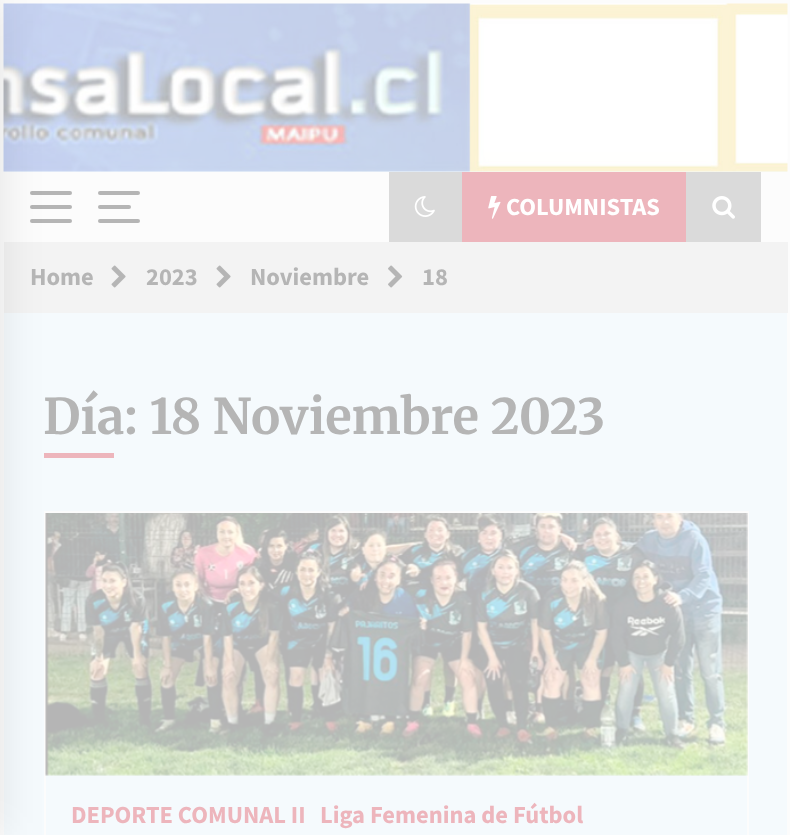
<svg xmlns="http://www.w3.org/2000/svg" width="790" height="835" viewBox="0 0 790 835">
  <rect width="100%" height="100%" fill="#f5fafd"/>
  <path d="M2 2h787v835H2z" fill="none" stroke="#fcfcfc" stroke-width="4"/>
  <image x="3" y="3" width="785" height="169" href="img/1.png"/>
  <path d="M4 172h783v70H4z" fill="#fcfcfc"/>
  <rect x="30" y="191" width="42" height="4" rx="2" fill="#b5b5b5"/>
  <rect x="30" y="219" width="42" height="4" rx="2" fill="#b5b5b5"/>
  <rect x="30" y="205" width="42" height="4" rx="2" fill="#b5b5b5"/>
  <path d="M4 242h784v71H4z" fill="#f3f3f3"/>
  <path d="M44 453h70v5H44z" fill="#edb5bc"/>
  <path d="M45 512h703v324H45z" fill="none" stroke="#fcfcfc" stroke-width="2"/>
  <image x="45" y="513" width="703" height="263" href="img/7.png"/>
  <path d="M-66 0h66v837H-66z" fill="#0000001a" filter="blur(22px)"/>
  <rect x="98" y="191" width="42" height="4" rx="2" fill="#b5b5b5"/>
  <rect x="98" y="219" width="42" height="4" rx="2" fill="#b5b5b5"/>
  <rect x="98" y="205" width="33" height="4" rx="2" fill="#b5b5b5"/>
  <path d="M389 172h73v70H389z" fill="#dadada"/>
  <image x="414" y="196" width="21" height="21" href="img/2.png"/>
  <path d="M462 172h224v70H462z" fill="#edb5bc"/>
  <image x="488" y="196" width="13" height="23" href="img/3.png"/>
  <path d="M686 172h75v70H686z" fill="#dadada"/>
  <image x="712" y="196" width="23" height="23" href="img/4.png"/>
  <image x="111" y="265" width="15" height="23" href="img/5.png"/>
  <image x="216" y="265" width="15" height="23" href="img/5.png"/>
  <image x="388" y="265" width="15" height="23" href="img/6.png"/>
  <text x="506" y="215" font-family="Source Sans Pro" font-size="24.5" font-weight="bold" fill="#fff">COLUMNISTAS</text>
  <g font-family="Source Sans Pro" font-size="24.5" font-weight="bold" fill="#b5b5b5">
    <text x="30" y="285">Home</text>
    <text x="146" y="285">2023</text>
    <text x="250" y="285">Noviembre</text>
    <text x="422" y="285">18</text>
  </g>
  <text x="43" y="434" font-family="Merriweather" font-size="49" font-weight="bold" fill="#b5b5b5">Día: 18 Noviembre 2023</text>
  <g font-family="Source Sans Pro" font-size="24.5" font-weight="bold" fill="#edb5bc">
    <text x="71" y="823">DEPORTE COMUNAL II</text>
    <text x="320" y="823">Liga Femenina de Fútbol</text>
  </g>
</svg>
